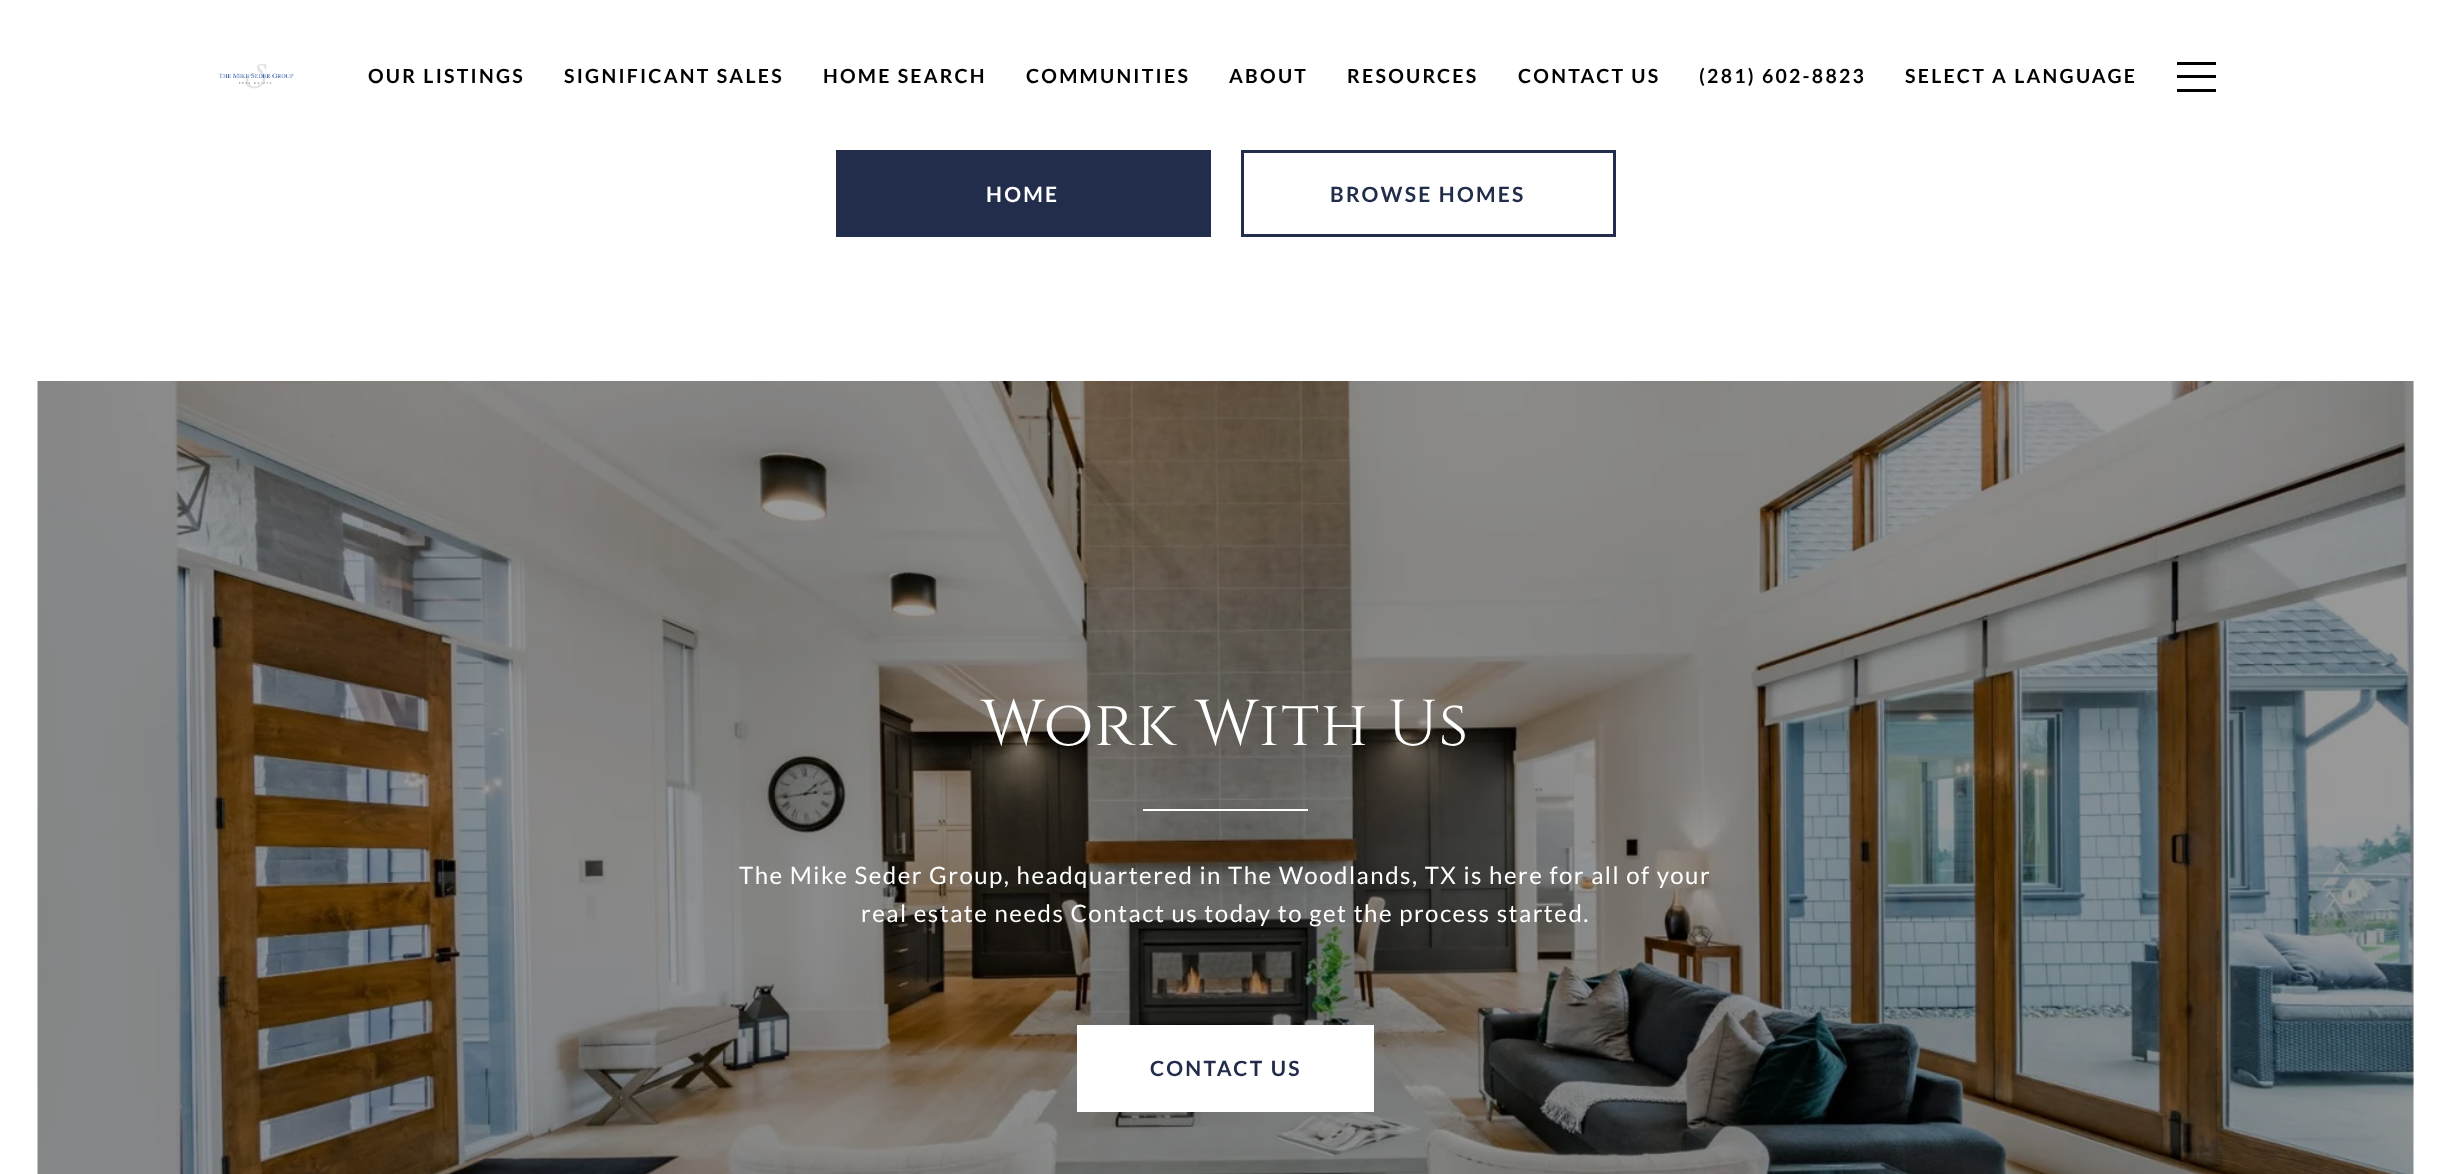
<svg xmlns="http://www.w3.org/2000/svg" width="2451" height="1174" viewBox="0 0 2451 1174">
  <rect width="100%" height="100%" fill="#fff"/>
  <image x="218" y="63" width="76" height="26" href="img/1.png"/>
  <path d="M2177 75h39v3H2177z" fill="#000"/>
  <path d="M2177 62h39v3H2177z" fill="#000"/>
  <path d="M2177 89h39v3H2177z" fill="#000"/>
  <path d="M836 150h375v87H836z" fill="#222d4b"/>
  <path d="M1242.5 151.5h372v84H1242.5z" fill="none" stroke="#222d4b" stroke-width="3"/>
  <image x="37" y="381" width="2377" height="793" href="img/2.png"/>
  <path d="M1143 809h165v2H1143z" fill="#fff"/>
  <path d="M1077 1025h297v87H1077z" fill="#fff"/>
  <g font-family="Lato" font-size="19.5" font-weight="bold" letter-spacing="2.25" fill="#000">
    <text x="368" y="83">OUR LISTINGS</text>
    <text x="564" y="83">SIGNIFICANT SALES</text>
    <text x="823" y="83">HOME SEARCH</text>
    <text x="1026" y="83">COMMUNITIES</text>
    <text x="1229" y="83">ABOUT</text>
    <text x="1347" y="83">RESOURCES</text>
    <text x="1518" y="83">CONTACT US</text>
    <text x="1699" y="83">(281) 602-8823</text>
    <text x="1905" y="83">SELECT A LANGUAGE</text>
  </g>
  <text x="986" y="202" font-family="Lato" font-size="21" font-weight="bold" letter-spacing="2.25" fill="#fff">HOME</text>
  <text x="1330" y="202" font-family="Lato" font-size="21" font-weight="bold" letter-spacing="2.25" fill="#222d4b">BROWSE HOMES</text>
  <text x="981" y="745" font-family="Cinzel" font-size="64.5" letter-spacing="1.5" fill="#fff">Work With Us</text>
  <g font-family="Lato" font-size="24" letter-spacing="1.5" fill="#fff">
    <text x="739" y="884">The Mike Seder Group, headquartered in The Woodlands, TX is here for all of your</text>
    <text x="861" y="922">real estate needs Contact us today to get the process started.</text>
  </g>
  <text x="1150" y="1076" font-family="Lato" font-size="21" font-weight="bold" letter-spacing="2.25" fill="#222d4b">CONTACT US</text>
</svg>
